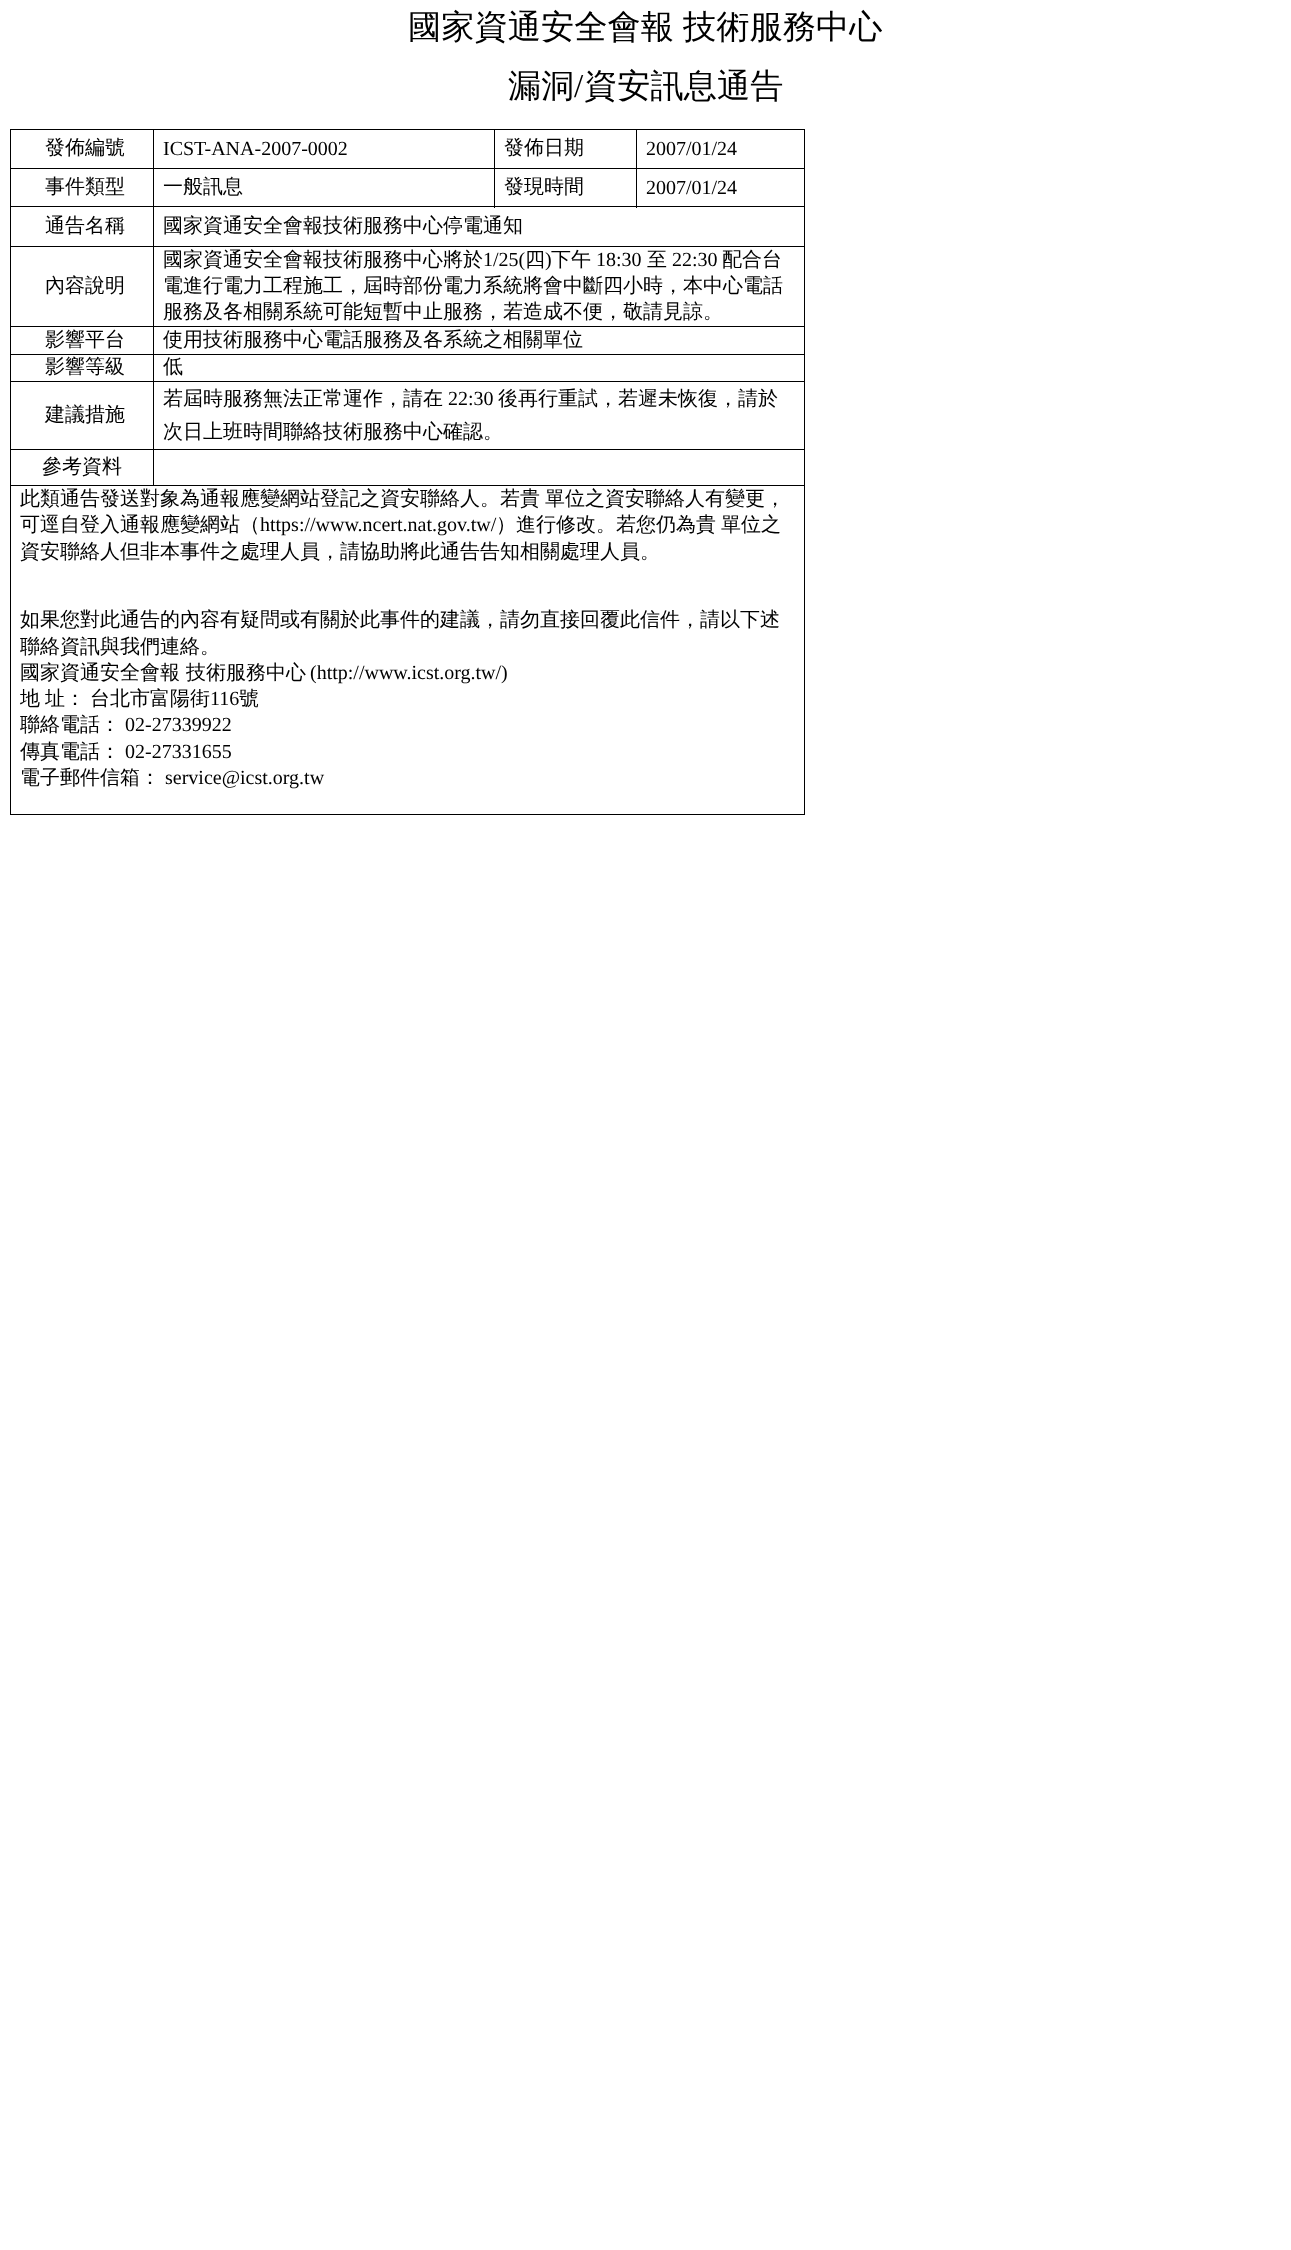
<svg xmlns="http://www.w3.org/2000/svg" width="1291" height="2250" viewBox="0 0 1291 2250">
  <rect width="100%" height="100%" fill="#fff"/>
  <path d="M10 129h795v1H10z" fill="#000"/>
  <path d="M10 168h795v1H10z" fill="#000"/>
  <path d="M804 206h1v609H804z" fill="#000"/>
  <path d="M804 168h1v40H804z" fill="#000"/>
  <path d="M636 206h169v1H636z" fill="#000"/>
  <path d="M636 168h1v40H636z" fill="#000"/>
  <path d="M494 206h144v1H494z" fill="#000"/>
  <path d="M494 168h1v40H494z" fill="#000"/>
  <path d="M153 485h652v1H153z" fill="#000"/>
  <path d="M153 449h1v37H153z" fill="#000"/>
  <path d="M153 449h652v1H153z" fill="#000"/>
  <path d="M153 381h1v69H153z" fill="#000"/>
  <path d="M153 381h652v1H153z" fill="#000"/>
  <path d="M153 354h1v29H153z" fill="#000"/>
  <path d="M153 354h652v1H153z" fill="#000"/>
  <path d="M153 326h1v29H153z" fill="#000"/>
  <path d="M153 326h652v1H153z" fill="#000"/>
  <path d="M153 246h1v82H153z" fill="#000"/>
  <path d="M153 246h652v1H153z" fill="#000"/>
  <path d="M153 206h1v42H153z" fill="#000"/>
  <path d="M153 206h342v1H153z" fill="#000"/>
  <path d="M153 168h1v40H153z" fill="#000"/>
  <path d="M153 129h1v40H153z" fill="#000"/>
  <path d="M10 814h795v1H10z" fill="#000"/>
  <path d="M10 485h1v330H10z" fill="#000"/>
  <path d="M10 485h144v1H10z" fill="#000"/>
  <path d="M10 449h1v37H10z" fill="#000"/>
  <path d="M10 449h144v1H10z" fill="#000"/>
  <path d="M10 381h1v69H10z" fill="#000"/>
  <path d="M10 381h144v1H10z" fill="#000"/>
  <path d="M10 354h1v29H10z" fill="#000"/>
  <path d="M10 354h144v1H10z" fill="#000"/>
  <path d="M10 326h1v29H10z" fill="#000"/>
  <path d="M10 326h144v1H10z" fill="#000"/>
  <path d="M10 246h1v82H10z" fill="#000"/>
  <path d="M10 246h144v1H10z" fill="#000"/>
  <path d="M10 206h1v42H10z" fill="#000"/>
  <path d="M10 206h144v1H10z" fill="#000"/>
  <path d="M10 168h1v40H10z" fill="#000"/>
  <path d="M10 129h1v40H10z" fill="#000"/>
  <path d="M494 129h1v40H494z" fill="#000"/>
  <path d="M636 129h1v40H636z" fill="#000"/>
  <path d="M804 129h1v40H804z" fill="#000"/>
  <g font-family="WenQuanYi Zen Hei" font-size="33.25" font-weight="500" fill="#000">
    <text x="408" y="38">國家資通安全會報</text>
    <text x="683" y="38">技術服務中心</text>
    <text x="508" y="97">漏洞</text>
  </g>
  <text x="574" y="97" font-family="Liberation Serif" font-size="33.25" fill="#000">/</text>
  <text x="584" y="97" font-family="WenQuanYi Zen Hei" font-size="33.25" font-weight="500" fill="#000">資安訊息通告</text>
  <text x="45" y="154" font-family="WenQuanYi Zen Hei" font-size="20" font-weight="500" fill="#000">發佈編號</text>
  <text x="163" y="155" font-family="Liberation Serif" font-size="20" fill="#000">ICST-ANA-2007-0002</text>
  <text x="504" y="154" font-family="WenQuanYi Zen Hei" font-size="20" font-weight="500" fill="#000">發佈日期</text>
  <text x="646" y="155" font-family="Liberation Serif" font-size="20" fill="#000">2007/01/24</text>
  <g font-family="WenQuanYi Zen Hei" font-size="20" font-weight="500" fill="#000">
    <text x="45" y="193">事件類型</text>
    <text x="163" y="193">一般訊息</text>
    <text x="504" y="193">發現時間</text>
  </g>
  <text x="646" y="194" font-family="Liberation Serif" font-size="20" fill="#000">2007/01/24</text>
  <g font-family="WenQuanYi Zen Hei" font-size="20" font-weight="500" fill="#000">
    <text x="45" y="232">通告名稱</text>
    <text x="163" y="232">國家資通安全會報技術服務中心停電通知</text>
    <text x="45" y="292">內容說明</text>
    <text x="163" y="266">國家資通安全會報技術服務中心將於</text>
  </g>
  <text x="483" y="266" font-family="Liberation Serif" font-size="20" fill="#000">1/25(</text>
  <text x="525" y="266" font-family="WenQuanYi Zen Hei" font-size="20" font-weight="500" fill="#000">四</text>
  <text x="545" y="266" font-family="Liberation Serif" font-size="20" fill="#000">)</text>
  <text x="551" y="266" font-family="WenQuanYi Zen Hei" font-size="20" font-weight="500" fill="#000">下午</text>
  <text x="596" y="266" font-family="Liberation Serif" font-size="20" fill="#000">18:30</text>
  <text x="647" y="266" font-family="WenQuanYi Zen Hei" font-size="20" font-weight="500" fill="#000">至</text>
  <text x="672" y="266" font-family="Liberation Serif" font-size="20" fill="#000">22:30</text>
  <g font-family="WenQuanYi Zen Hei" font-size="20" font-weight="500" fill="#000">
    <text x="722" y="266">配合台</text>
    <text x="163" y="292">電進行電力工程施工，屆時部份電力系統將會中斷四小時，本中心電話</text>
    <text x="163" y="318">服務及各相關系統可能短暫中止服務，若造成不便，敬請見諒。</text>
    <text x="45" y="346">影響平台</text>
    <text x="163" y="346">使用技術服務中心電話服務及各系統之相關單位</text>
    <text x="45" y="373">影響等級</text>
    <text x="163" y="373">低</text>
    <text x="45" y="421">建議措施</text>
    <text x="163" y="405">若屆時服務無法正常運作，請在</text>
  </g>
  <text x="448" y="405" font-family="Liberation Serif" font-size="20" fill="#000">22:30</text>
  <g font-family="WenQuanYi Zen Hei" font-size="20" font-weight="500" fill="#000">
    <text x="498" y="405">後再行重試，若遲未恢復，請於</text>
    <text x="163" y="438">次日上班時間聯絡技術服務中心確認。</text>
    <text x="42" y="473">參考資料</text>
    <text x="20" y="505">此類通告發送對象為通報應變網站登記之資安聯絡人。若貴</text>
    <text x="545" y="505">單位之資安聯絡人有變更，</text>
    <text x="20" y="531">可逕自登入通報應變網站（</text>
  </g>
  <text x="260" y="531" font-family="Liberation Serif" font-size="20" fill="#000">https://www.ncert.nat.gov.tw/</text>
  <g font-family="WenQuanYi Zen Hei" font-size="20" font-weight="500" fill="#000">
    <text x="496" y="531">）進行修改。若您仍為貴</text>
    <text x="721" y="531">單位之</text>
    <text x="20" y="558">資安聯絡人但非本事件之處理人員，請協助將此通告告知相關處理人員。</text>
    <text x="20" y="626">如果您對此通告的內容有疑問或有關於此事件的建議，請勿直接回覆此信件，請以下述</text>
    <text x="20" y="653">聯絡資訊與我們連絡。</text>
    <text x="20" y="679">國家資通安全會報 技術服務中心</text>
  </g>
  <text x="310" y="679" font-family="Liberation Serif" font-size="20" fill="#000">(http://www.icst.org.tw/)</text>
  <g font-family="WenQuanYi Zen Hei" font-size="20" font-weight="500" fill="#000">
    <text x="20" y="705">地</text>
    <text x="45" y="705" word-spacing="-1">址： 台北市富陽街</text>
  </g>
  <text x="210" y="705" font-family="Liberation Serif" font-size="20" fill="#000">116</text>
  <g font-family="WenQuanYi Zen Hei" font-size="20" font-weight="500" fill="#000">
    <text x="239" y="705">號</text>
    <text x="20" y="731">聯絡電話：</text>
  </g>
  <text x="125" y="731" font-family="Liberation Serif" font-size="20" fill="#000">02-27339922</text>
  <text x="20" y="758" font-family="WenQuanYi Zen Hei" font-size="20" font-weight="500" fill="#000">傳真電話：</text>
  <text x="125" y="758" font-family="Liberation Serif" font-size="20" fill="#000">02-27331655</text>
  <text x="20" y="784" font-family="WenQuanYi Zen Hei" font-size="20" font-weight="500" fill="#000">電子郵件信箱：</text>
  <text x="165" y="784" font-family="Liberation Serif" font-size="20" fill="#000">service@icst.org.tw</text>
</svg>
